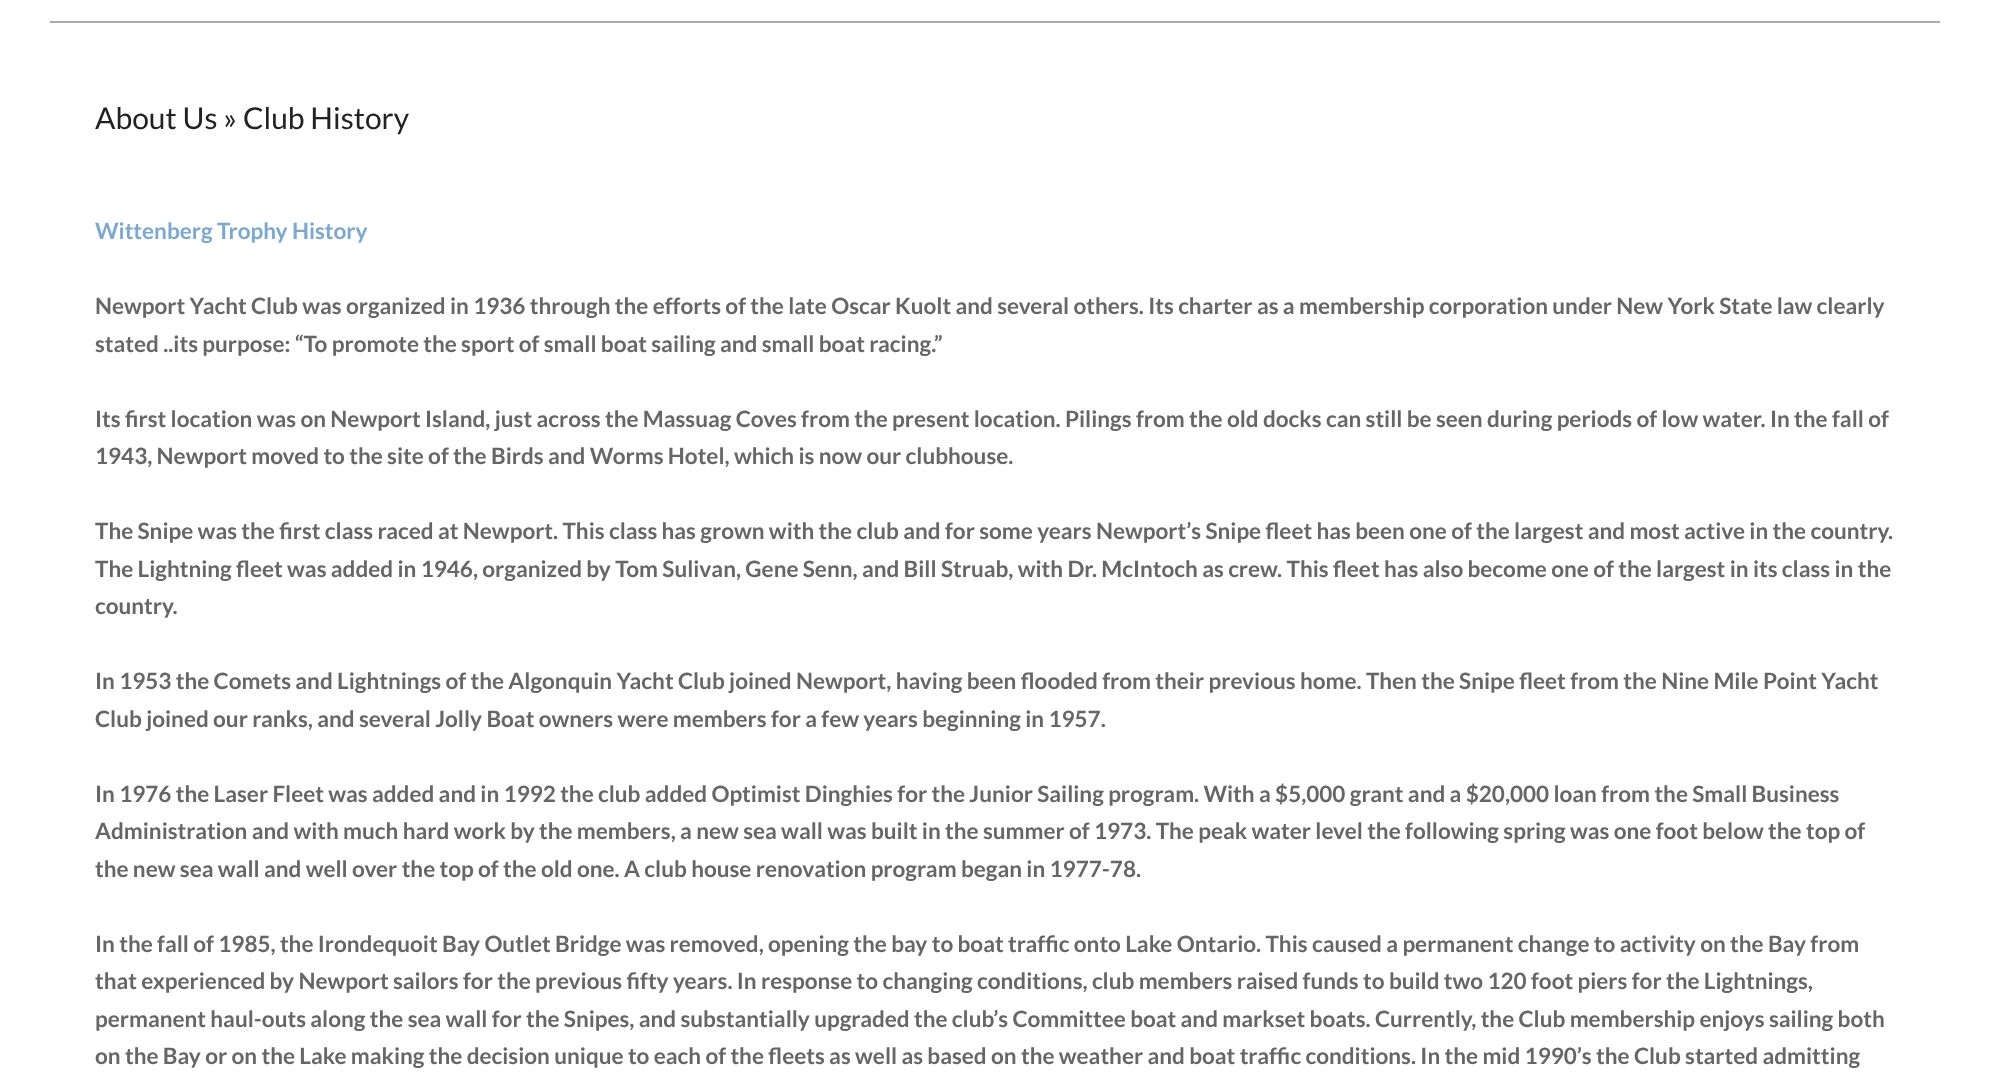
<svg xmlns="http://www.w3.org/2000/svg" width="1989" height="1087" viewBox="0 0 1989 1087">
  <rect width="100%" height="100%" fill="#fff"/>
  <path d="M50 21h1890v2H50z" fill="#aaa"/>
  <text x="95" y="129" font-family="Lato" font-size="30" fill="#222">About Us » Club History</text>
  <text x="95" y="239" font-family="Lato" font-size="22.5" font-weight="bold" fill="#79a8d1">Wittenberg Trophy History</text>
  <g font-family="Lato" font-size="22.5" font-weight="bold" fill="#666">
    <text x="95" y="314">Newport Yacht Club was organized in 1936 through the efforts of the late Oscar Kuolt and several others. Its charter as a membership corporation under New York State law clearly</text>
    <text x="95" y="352">stated ..its purpose: “To promote the sport of small boat sailing and small boat racing.”</text>
    <text x="95" y="427">Its first location was on Newport Island, just across the Massuag Coves from the present location. Pilings from the old docks can still be seen during periods of low water. In the fall of</text>
    <text x="95" y="464">1943, Newport moved to the site of the Birds and Worms Hotel, which is now our clubhouse.</text>
    <text x="95" y="539">The Snipe was the first class raced at Newport. This class has grown with the club and for some years Newport’s Snipe fleet has been one of the largest and most active in the country.</text>
    <text x="95" y="577">The Lightning fleet was added in 1946, organized by Tom Sulivan, Gene Senn, and Bill Struab, with Dr. McIntoch as crew. This fleet has also become one of the largest in its class in the</text>
    <text x="95" y="614">country.</text>
    <text x="95" y="689">In 1953 the Comets and Lightnings of the Algonquin Yacht Club joined Newport, having been flooded from their previous home. Then the Snipe fleet from the Nine Mile Point Yacht</text>
    <text x="95" y="727">Club joined our ranks, and several Jolly Boat owners were members for a few years beginning in 1957.</text>
    <text x="95" y="802">In 1976 the Laser Fleet was added and in 1992 the club added Optimist Dinghies for the Junior Sailing program. With a $5,000 grant and a $20,000 loan from the Small Business</text>
    <text x="95" y="839">Administration and with much hard work by the members, a new sea wall was built in the summer of 1973. The peak water level the following spring was one foot below the top of</text>
    <text x="95" y="877">the new sea wall and well over the top of the old one. A club house renovation program began in 1977-78.</text>
    <text x="95" y="952">In the fall of 1985, the Irondequoit Bay Outlet Bridge was removed, opening the bay to boat traffic onto Lake Ontario. This caused a permanent change to activity on the Bay from</text>
    <text x="95" y="989">that experienced by Newport sailors for the previous fifty years. In response to changing conditions, club members raised funds to build two 120 foot piers for the Lightnings,</text>
    <text x="95" y="1027">permanent haul-outs along the sea wall for the Snipes, and substantially upgraded the club’s Committee boat and markset boats. Currently, the Club membership enjoys sailing both</text>
    <text x="95" y="1064">on the Bay or on the Lake making the decision unique to each of the fleets as well as based on the weather and boat traffic conditions. In the mid 1990’s the Club started admitting</text>
  </g>
</svg>
